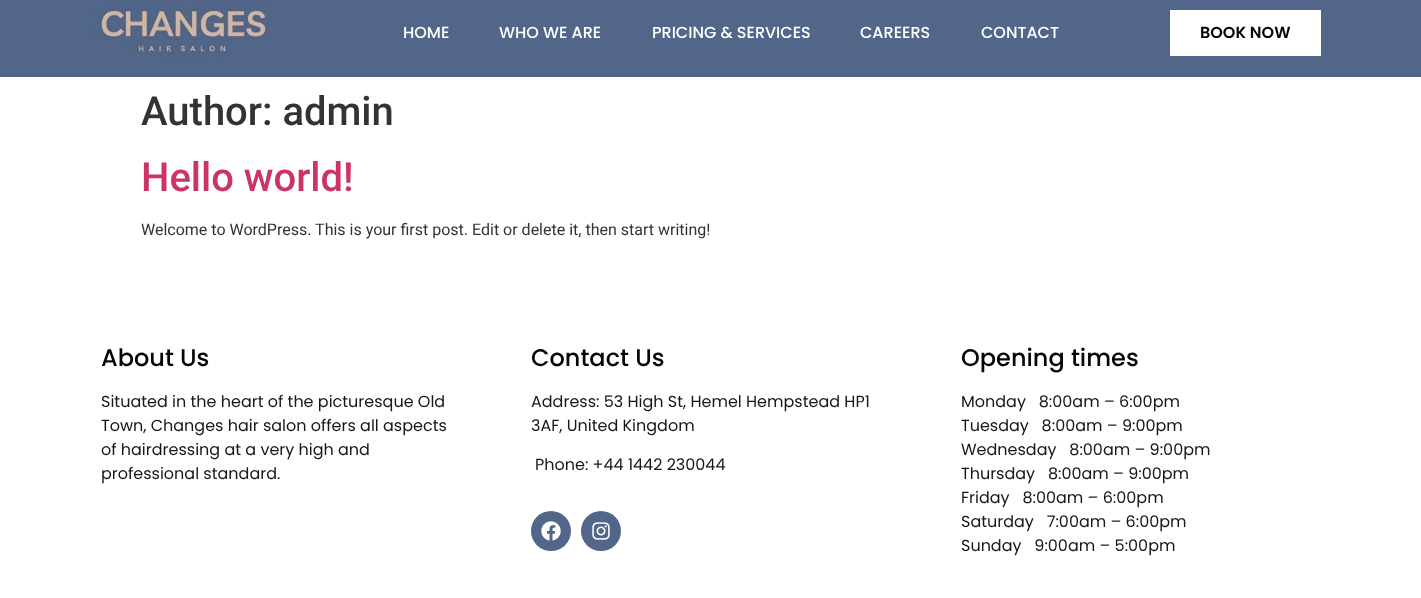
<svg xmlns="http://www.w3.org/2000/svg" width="1421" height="598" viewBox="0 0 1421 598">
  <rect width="100%" height="100%" fill="#fff"/>
  <path d="M0 0h1421v77H0z" fill="#526689"/>
  <image x="94" y="5" width="175" height="52" href="img/1.png"/>
  <path d="M1170 10h151v46H1170z" fill="#fff"/>
  <circle cx="551" cy="531" r="20" fill="#526689"/>
  <image x="541" y="521" width="20" height="20" href="img/2.png"/>
  <circle cx="601" cy="531" r="20" fill="#526689"/>
  <image x="592" y="522" width="18" height="18" href="img/3.png"/>
  <g font-family="Poppins" font-size="16" font-weight="500" fill="#fff">
    <text x="403" y="38">HOME</text>
    <text x="499" y="38">WHO WE ARE</text>
    <text x="652" y="38">PRICING &amp; SERVICES</text>
    <text x="860" y="38">CAREERS</text>
    <text x="981" y="38">CONTACT</text>
  </g>
  <text x="1200" y="38" font-family="Poppins" font-size="16" font-weight="600" fill="#060606">BOOK NOW</text>
  <text x="141" y="125" font-family="Roboto" font-size="40" font-weight="500" fill="#333">Author: admin</text>
  <text x="141" y="191" font-family="Roboto" font-size="40" font-weight="500" fill="#c36">Hello world!</text>
  <text x="141" y="235" font-family="Roboto" font-size="16" fill="#333">Welcome to WordPress. This is your first post. Edit or delete it, then start writing!</text>
  <text x="101" y="366" font-family="Poppins" font-size="24" font-weight="500" fill="#060606">About Us</text>
  <g font-family="Poppins" font-size="16" fill="#171717">
    <text x="101" y="407">Situated in the heart of the picturesque Old</text>
    <text x="101" y="431">Town, Changes hair salon offers all aspects</text>
    <text x="101" y="455">of hairdressing at a very high and</text>
    <text x="101" y="479">professional standard.</text>
  </g>
  <text x="531" y="366" font-family="Poppins" font-size="24" font-weight="500" fill="#060606">Contact Us</text>
  <g font-family="Poppins" font-size="16" fill="#171717">
    <text x="531" y="407">Address: 53 High St, Hemel Hempstead HP1</text>
    <text x="531" y="431">3AF, United Kingdom</text>
    <text x="535" y="470">Phone: +44 1442 230044</text>
  </g>
  <text x="961" y="366" font-family="Poppins" font-size="24" font-weight="500" fill="#060606">Opening times</text>
  <g font-family="Poppins" font-size="16" fill="#171717">
    <text x="961" y="407" xml:space="preserve">Monday   8:00am – 6:00pm</text>
    <text x="961" y="431" xml:space="preserve">Tuesday   8:00am – 9:00pm</text>
    <text x="961" y="455" xml:space="preserve">Wednesday   8:00am – 9:00pm</text>
    <text x="961" y="479" xml:space="preserve">Thursday   8:00am – 9:00pm</text>
    <text x="961" y="503" xml:space="preserve">Friday   8:00am – 6:00pm</text>
    <text x="961" y="527" xml:space="preserve">Saturday   7:00am – 6:00pm</text>
    <text x="961" y="551" xml:space="preserve">Sunday   9:00am – 5:00pm</text>
  </g>
</svg>
